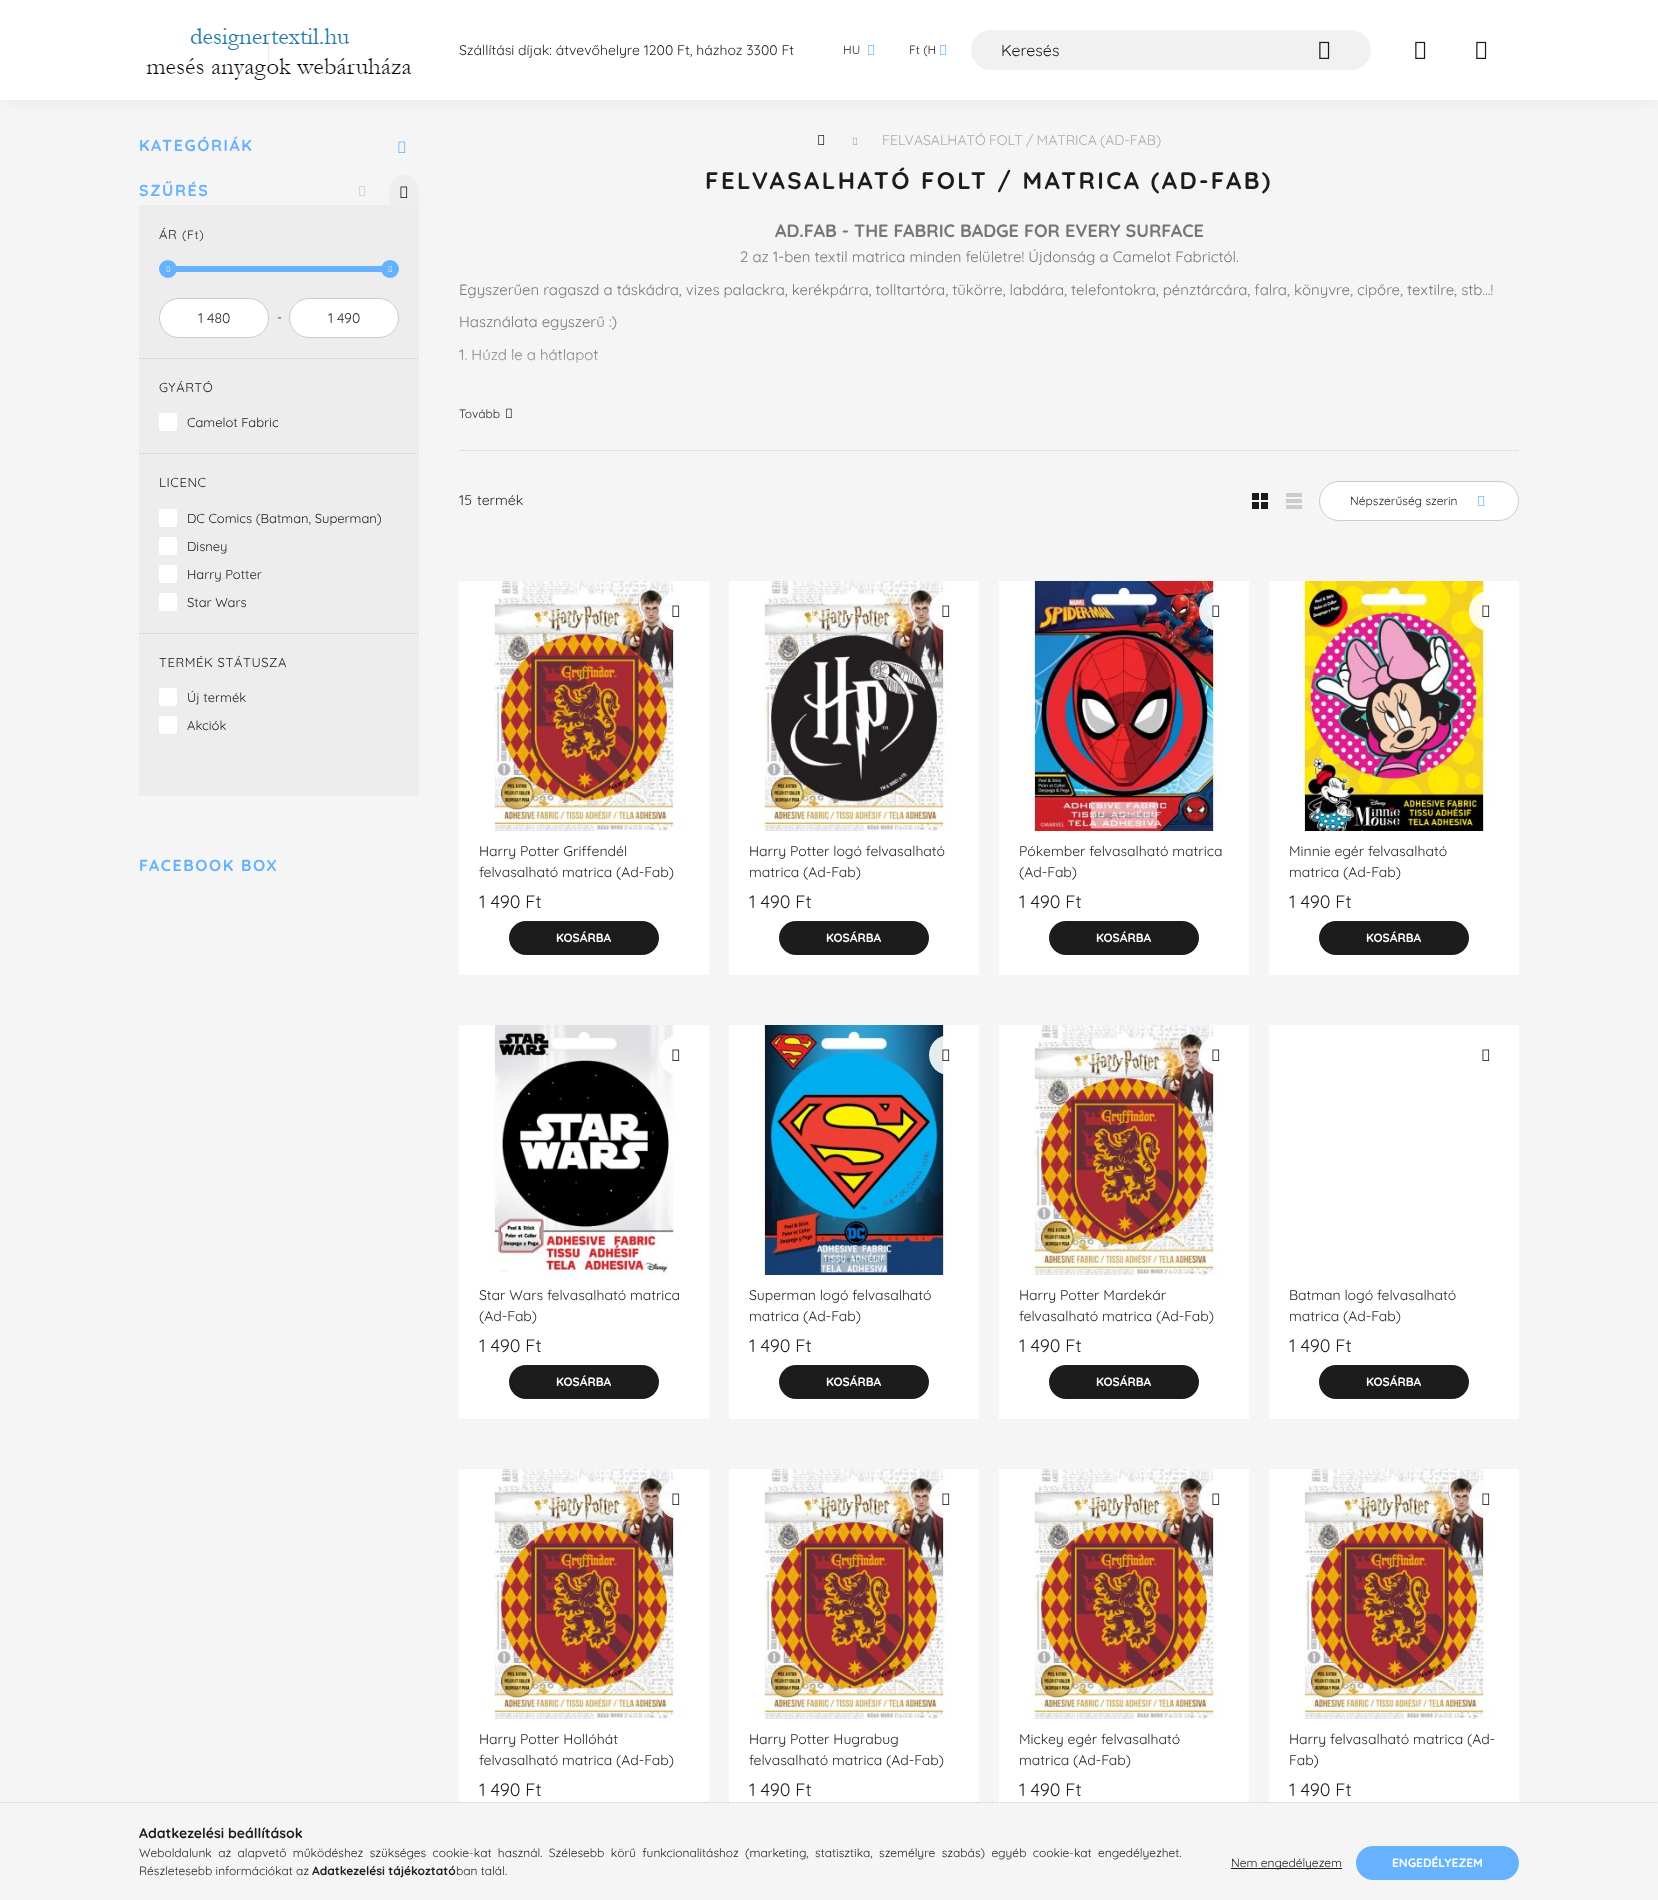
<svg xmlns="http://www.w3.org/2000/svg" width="1658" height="1900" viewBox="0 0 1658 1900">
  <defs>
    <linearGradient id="g1" gradientUnits="userSpaceOnUse" x1="989" y1="350" x2="989" y2="390"><stop offset="0" stop-color="#f5f5f5" stop-opacity="0"/><stop offset="1" stop-color="#f5f5f5"/></linearGradient>
  </defs>
  <rect width="100%" height="100%" fill="#f5f5f5"/>
  <path d="M0 0h1658v100H0z" fill="#0000000d" filter="blur(10px)"/>
  <path d="M0 0h1658v100H0z" fill="#fff"/>
  <image x="146" y="28" width="266" height="52" href="img/1.png"/>
  <image x="868" y="45" width="7" height="10" href="img/2.png"/>
  <image x="940" y="45" width="7" height="10" href="img/2.png"/>
  <rect x="971" y="30" width="400" height="40" rx="20" fill="#f1f1f1"/>
  <image x="1319" y="41" width="11" height="18" href="img/3.png"/>
  <image x="1415" y="41" width="11" height="18" href="img/4.png"/>
  <image x="1476" y="41" width="11" height="18" href="img/4.png"/>
  <image x="398" y="141" width="8" height="12" href="img/5.png"/>
  <image x="359" y="186" width="6" height="10" href="img/6.png"/>
  <path d="M404 175C412.5 175 419 181.5 419 190V205H389V190C389 181.5 395.5 175 404 175Z" fill="#eee"/>
  <image x="400" y="186" width="8" height="12" href="img/7.png"/>
  <path d="M139 205h280v591H139z" fill="#ededed"/>
  <path d="M168 266h222v6H168z" fill="#66b2ff"/>
  <circle cx="168" cy="269" r="9" fill="#66b2ff"/>
  <image x="166" y="266" width="5" height="6" href="img/8.png"/>
  <circle cx="390" cy="269" r="9" fill="#66b2ff"/>
  <image x="388" y="266" width="5" height="6" href="img/8.png"/>
  <rect x="159.5" y="298.5" width="109" height="39" rx="19.5" fill="#fff" stroke="#ccc"/>
  <rect x="289.5" y="298.5" width="109" height="39" rx="19.5" fill="#fff" stroke="#ccc"/>
  <path d="M139 358.5H419" fill="none" stroke="#ccc" stroke-dasharray="1 1"/>
  <rect x="159" y="413" width="18" height="18" rx="3" fill="#fff"/>
  <path d="M139 453.5H419" fill="none" stroke="#ccc" stroke-dasharray="1 1"/>
  <rect x="159" y="509" width="18" height="18" rx="3" fill="#fff"/>
  <rect x="159" y="537" width="18" height="18" rx="3" fill="#fff"/>
  <rect x="159" y="565" width="18" height="18" rx="3" fill="#fff"/>
  <rect x="159" y="593" width="18" height="18" rx="3" fill="#fff"/>
  <path d="M139 633.5H419" fill="none" stroke="#ccc" stroke-dasharray="1 1"/>
  <rect x="159" y="688" width="18" height="18" rx="3" fill="#fff"/>
  <rect x="159" y="716" width="18" height="18" rx="3" fill="#fff"/>
  <image x="818" y="135" width="7" height="10" href="img/9.png"/>
  <image x="852" y="137" width="6" height="8" href="img/10.png"/>
  <image x="506" y="408" width="6" height="10" href="img/11.png"/>
  <path d="M459 450.5H1519" fill="none" stroke="#ccc" stroke-dasharray="1 1"/>
  <image x="1252" y="493" width="16" height="16" href="img/12.png"/>
  <path d="M1286 493h16v4H1286z" fill="#ccc"/>
  <path d="M1286 499h16v4H1286z" fill="#ccc"/>
  <path d="M1286 505h16v4H1286z" fill="#ccc"/>
  <rect x="1319.5" y="481.5" width="199" height="39" rx="19.5" fill="#fff" stroke="#ccc"/>
  <image x="1478" y="496" width="7" height="10" href="img/2.png"/>
  <path d="M459 581h250v394H459z" fill="#fff"/>
  <image x="487" y="581" width="196" height="250" href="img/13.png"/>
  <circle cx="679" cy="611" r="20" fill="#ffffffe6"/>
  <image x="672" y="605" width="8" height="12" href="img/14.png"/>
  <rect x="509" y="921" width="150" height="34" rx="17" fill="#1c1c1c"/>
  <path d="M729 581h250v394H729z" fill="#fff"/>
  <image x="757" y="581" width="196" height="250" href="img/15.png"/>
  <circle cx="949" cy="611" r="20" fill="#ffffffe6"/>
  <image x="942" y="605" width="8" height="12" href="img/14.png"/>
  <rect x="779" y="921" width="150" height="34" rx="17" fill="#1c1c1c"/>
  <path d="M999 581h250v394H999z" fill="#fff"/>
  <image x="1026" y="581" width="197" height="250" href="img/16.png"/>
  <circle cx="1219" cy="611" r="20" fill="#ffffffe6"/>
  <image x="1212" y="605" width="8" height="12" href="img/17.png"/>
  <rect x="1049" y="921" width="150" height="34" rx="17" fill="#1c1c1c"/>
  <path d="M1269 581h250v394H1269z" fill="#fff"/>
  <image x="1297" y="581" width="196" height="250" href="img/18.png"/>
  <circle cx="1489" cy="611" r="20" fill="#ffffffe6"/>
  <image x="1482" y="605" width="8" height="12" href="img/19.png"/>
  <rect x="1319" y="921" width="150" height="34" rx="17" fill="#1c1c1c"/>
  <path d="M459 1025h250v394H459z" fill="#fff"/>
  <image x="487" y="1025" width="187" height="250" href="img/20.png"/>
  <circle cx="679" cy="1055" r="20" fill="#ffffffe6"/>
  <image x="672" y="1049" width="8" height="12" href="img/21.png"/>
  <rect x="509" y="1365" width="150" height="34" rx="17" fill="#1c1c1c"/>
  <path d="M729 1025h250v394H729z" fill="#fff"/>
  <image x="757" y="1025" width="196" height="250" href="img/22.png"/>
  <circle cx="949" cy="1055" r="20" fill="#ffffffe6"/>
  <image x="942" y="1049" width="8" height="12" href="img/23.png"/>
  <rect x="779" y="1365" width="150" height="34" rx="17" fill="#1c1c1c"/>
  <path d="M999 1025h250v394H999z" fill="#fff"/>
  <image x="1027" y="1025" width="196" height="250" href="img/24.png"/>
  <circle cx="1219" cy="1055" r="20" fill="#ffffffe6"/>
  <image x="1212" y="1049" width="8" height="12" href="img/14.png"/>
  <rect x="1049" y="1365" width="150" height="34" rx="17" fill="#1c1c1c"/>
  <path d="M1269 1025h250v394H1269z" fill="#fff"/>
  <image x="1482" y="1049" width="8" height="12" href="img/25.png"/>
  <rect x="1319" y="1365" width="150" height="34" rx="17" fill="#1c1c1c"/>
  <path d="M459 1469h250v333H459z" fill="#fff"/>
  <image x="487" y="1469" width="196" height="250" href="img/24.png"/>
  <circle cx="679" cy="1499" r="20" fill="#ffffffe6"/>
  <image x="672" y="1493" width="8" height="12" href="img/14.png"/>
  <path d="M729 1469h250v333H729z" fill="#fff"/>
  <image x="757" y="1469" width="196" height="250" href="img/24.png"/>
  <circle cx="949" cy="1499" r="20" fill="#ffffffe6"/>
  <image x="942" y="1493" width="8" height="12" href="img/14.png"/>
  <path d="M999 1469h250v333H999z" fill="#fff"/>
  <image x="1027" y="1469" width="196" height="250" href="img/24.png"/>
  <circle cx="1219" cy="1499" r="20" fill="#ffffffe6"/>
  <image x="1212" y="1493" width="8" height="12" href="img/14.png"/>
  <path d="M1269 1469h250v333H1269z" fill="#fff"/>
  <image x="1297" y="1469" width="196" height="250" href="img/24.png"/>
  <circle cx="1489" cy="1499" r="20" fill="#ffffffe6"/>
  <image x="1482" y="1493" width="8" height="12" href="img/14.png"/>
  <path d="M0 1802.5H1658" fill="none" stroke="#ccc" stroke-dasharray="1 1"/>
  <path d="M1231 1868h111v1H1231z" fill="#1c1c1c"/>
  <rect x="1356" y="1846" width="163" height="34" rx="17" fill="#66b2ff"/>
  <text x="459" y="55" font-family="Quicksand" font-size="14" fill="#1c1c1c">Szállítási díjak: átvevőhelyre 1200 Ft, házhoz 3300 Ft</text>
  <g font-family="Quicksand" font-size="12" fill="#1c1c1c">
    <text x="843" y="54">HU</text>
    <text x="909" y="54">Ft (H</text>
  </g>
  <text x="1001" y="56" font-family="Quicksand" font-size="16" fill="#1c1c1c">Keresés</text>
  <g font-family="Quicksand" font-size="16" font-weight="bold" letter-spacing="1.6" fill="#66b2ff">
    <text x="139" y="151">KATEGÓRIÁK</text>
    <text x="139" y="196">SZŰRÉS</text>
  </g>
  <text x="159" y="239" font-family="Quicksand" font-size="13" letter-spacing="0.6" fill="#1c1c1c">ÁR</text>
  <text x="182" y="239" font-family="Quicksand" font-size="12" letter-spacing="0.6" fill="#1c1c1c">(Ft)</text>
  <text x="198" y="323" font-family="Quicksand" font-size="14" fill="#1c1c1c">1 480</text>
  <text x="277" y="322" font-family="Quicksand" font-size="13" fill="#1c1c1c">-</text>
  <text x="328" y="323" font-family="Quicksand" font-size="14" fill="#1c1c1c">1 490</text>
  <text x="159" y="392" font-family="Quicksand" font-size="13" letter-spacing="0.6" fill="#1c1c1c">GYÁRTÓ</text>
  <text x="187" y="427" font-family="Quicksand" font-size="13" fill="#1c1c1c">Camelot Fabric</text>
  <text x="159" y="487" font-family="Quicksand" font-size="13" letter-spacing="0.6" fill="#1c1c1c">LICENC</text>
  <g font-family="Quicksand" font-size="13" fill="#1c1c1c">
    <text x="187" y="523">DC Comics (Batman, Superman)</text>
    <text x="187" y="551">Disney</text>
    <text x="187" y="579">Harry Potter</text>
    <text x="187" y="607">Star Wars</text>
  </g>
  <text x="159" y="667" font-family="Quicksand" font-size="13" letter-spacing="0.6" fill="#1c1c1c">TERMÉK STÁTUSZA</text>
  <g font-family="Quicksand" font-size="13" fill="#1c1c1c">
    <text x="187" y="702">Új termék</text>
    <text x="187" y="730">Akciók</text>
  </g>
  <text x="139" y="871" font-family="Quicksand" font-size="16" font-weight="bold" letter-spacing="1.6" fill="#66b2ff">FACEBOOK BOX</text>
  <text x="882" y="145" word-spacing="-0.5" font-family="Quicksand" font-size="14" fill="#aaa">FELVASALHATÓ FOLT / MATRICA (AD-FAB)</text>
  <text x="705" y="189" font-family="Quicksand" font-size="24" font-weight="bold" letter-spacing="2.4" fill="#1c1c1c">FELVASALHATÓ FOLT / MATRICA (AD-FAB)</text>
  <text x="775" y="237" font-family="Quicksand" font-size="18" font-weight="bold" fill="#777">AD.FAB - THE FABRIC BADGE FOR EVERY SURFACE</text>
  <g font-family="Quicksand" font-size="15" fill="#777">
    <text x="740" y="262">2 az 1-ben textil matrica minden felületre! Újdonság a Camelot Fabrictól.</text>
    <text x="459" y="295">Egyszerűen ragaszd a táskádra, vizes palackra, kerékpárra, tolltartóra, tükörre, labdára, telefontokra, pénztárcára, falra, könyvre, cipőre, textilre, stb...!</text>
    <text x="459" y="327">Használata egyszerű :)</text>
    <text x="459" y="360">1. Húzd le a hátlapot</text>
  </g>
  <path d="M460 351h138v12H460z" fill="url(#g1)"/>
  <text x="459" y="418" font-family="Quicksand" font-size="12" fill="#1c1c1c">Tovább</text>
  <g font-family="Quicksand" font-size="14" fill="#1c1c1c">
    <text x="459" y="505">15</text>
    <text x="477" y="505">termék</text>
  </g>
  <text x="1350" y="505" font-family="Quicksand" font-size="12" fill="#1c1c1c">Népszerűség szerin</text>
  <g font-family="Quicksand" font-size="14" fill="#1c1c1c">
    <text x="479" y="856">Harry Potter Griffendél</text>
    <text x="479" y="877">felvasalható matrica (Ad-Fab)</text>
  </g>
  <text x="479" y="908" font-family="Quicksand" font-size="18" fill="#1c1c1c">1 490 Ft</text>
  <text x="556" y="942" font-family="Quicksand" font-size="12" font-weight="bold" fill="#fff">KOSÁRBA</text>
  <g font-family="Quicksand" font-size="14" fill="#1c1c1c">
    <text x="749" y="856">Harry Potter logó felvasalható</text>
    <text x="749" y="877">matrica (Ad-Fab)</text>
  </g>
  <text x="749" y="908" font-family="Quicksand" font-size="18" fill="#1c1c1c">1 490 Ft</text>
  <text x="826" y="942" font-family="Quicksand" font-size="12" font-weight="bold" fill="#fff">KOSÁRBA</text>
  <g font-family="Quicksand" font-size="14" fill="#1c1c1c">
    <text x="1019" y="856">Pókember felvasalható matrica</text>
    <text x="1019" y="877">(Ad-Fab)</text>
  </g>
  <text x="1019" y="908" font-family="Quicksand" font-size="18" fill="#1c1c1c">1 490 Ft</text>
  <text x="1096" y="942" font-family="Quicksand" font-size="12" font-weight="bold" fill="#fff">KOSÁRBA</text>
  <g font-family="Quicksand" font-size="14" fill="#1c1c1c">
    <text x="1289" y="856">Minnie egér felvasalható</text>
    <text x="1289" y="877">matrica (Ad-Fab)</text>
  </g>
  <text x="1289" y="908" font-family="Quicksand" font-size="18" fill="#1c1c1c">1 490 Ft</text>
  <text x="1366" y="942" font-family="Quicksand" font-size="12" font-weight="bold" fill="#fff">KOSÁRBA</text>
  <g font-family="Quicksand" font-size="14" fill="#1c1c1c">
    <text x="479" y="1300">Star Wars felvasalható matrica</text>
    <text x="479" y="1321">(Ad-Fab)</text>
  </g>
  <text x="479" y="1352" font-family="Quicksand" font-size="18" fill="#1c1c1c">1 490 Ft</text>
  <text x="556" y="1386" font-family="Quicksand" font-size="12" font-weight="bold" fill="#fff">KOSÁRBA</text>
  <g font-family="Quicksand" font-size="14" fill="#1c1c1c">
    <text x="749" y="1300">Superman logó felvasalható</text>
    <text x="749" y="1321">matrica (Ad-Fab)</text>
  </g>
  <text x="749" y="1352" font-family="Quicksand" font-size="18" fill="#1c1c1c">1 490 Ft</text>
  <text x="826" y="1386" font-family="Quicksand" font-size="12" font-weight="bold" fill="#fff">KOSÁRBA</text>
  <g font-family="Quicksand" font-size="14" fill="#1c1c1c">
    <text x="1019" y="1300">Harry Potter Mardekár</text>
    <text x="1019" y="1321">felvasalható matrica (Ad-Fab)</text>
  </g>
  <text x="1019" y="1352" font-family="Quicksand" font-size="18" fill="#1c1c1c">1 490 Ft</text>
  <text x="1096" y="1386" font-family="Quicksand" font-size="12" font-weight="bold" fill="#fff">KOSÁRBA</text>
  <g font-family="Quicksand" font-size="14" fill="#1c1c1c">
    <text x="1289" y="1300">Batman logó felvasalható</text>
    <text x="1289" y="1321">matrica (Ad-Fab)</text>
  </g>
  <text x="1289" y="1352" font-family="Quicksand" font-size="18" fill="#1c1c1c">1 490 Ft</text>
  <text x="1366" y="1386" font-family="Quicksand" font-size="12" font-weight="bold" fill="#fff">KOSÁRBA</text>
  <g font-family="Quicksand" font-size="14" fill="#1c1c1c">
    <text x="479" y="1744">Harry Potter Hollóhát</text>
    <text x="479" y="1765">felvasalható matrica (Ad-Fab)</text>
  </g>
  <text x="479" y="1796" font-family="Quicksand" font-size="18" fill="#1c1c1c">1 490 Ft</text>
  <g font-family="Quicksand" font-size="14" fill="#1c1c1c">
    <text x="749" y="1744">Harry Potter Hugrabug</text>
    <text x="749" y="1765">felvasalható matrica (Ad-Fab)</text>
  </g>
  <text x="749" y="1796" font-family="Quicksand" font-size="18" fill="#1c1c1c">1 490 Ft</text>
  <g font-family="Quicksand" font-size="14" fill="#1c1c1c">
    <text x="1019" y="1744">Mickey egér felvasalható</text>
    <text x="1019" y="1765">matrica (Ad-Fab)</text>
  </g>
  <text x="1019" y="1796" font-family="Quicksand" font-size="18" fill="#1c1c1c">1 490 Ft</text>
  <g font-family="Quicksand" font-size="14" fill="#1c1c1c">
    <text x="1289" y="1744">Harry felvasalható matrica (Ad-</text>
    <text x="1289" y="1765">Fab)</text>
  </g>
  <text x="1289" y="1796" font-family="Quicksand" font-size="18" fill="#1c1c1c">1 490 Ft</text>
  <text x="139" y="1838" font-family="Quicksand" font-size="14" font-weight="bold" fill="#1c1c1c">Adatkezelési beállítások</text>
  <g font-family="Quicksand" font-size="12" fill="#1c1c1c">
    <text x="139" y="1857" word-spacing="3.1">Weboldalunk az alapvető működéshez szükséges cookie-kat használ. Szélesebb körű funkcionalitáshoz (marketing, statisztika, személyre szabás) egyéb cookie-kat engedélyezhet.</text>
    <text x="139" y="1875">Részletesebb információkat az</text>
  </g>
  <text x="312" y="1875" font-family="Quicksand" font-size="12" font-weight="bold" fill="#1c1c1c">Adatkezelési tájékoztató</text>
  <g font-family="Quicksand" font-size="12" fill="#1c1c1c">
    <text x="456" y="1875">ban talál.</text>
    <text x="1231" y="1867">Nem engedélyezem</text>
  </g>
  <text x="1392" y="1867" font-family="Quicksand" font-size="12" font-weight="bold" fill="#fff">ENGEDÉLYEZEM</text>
</svg>
